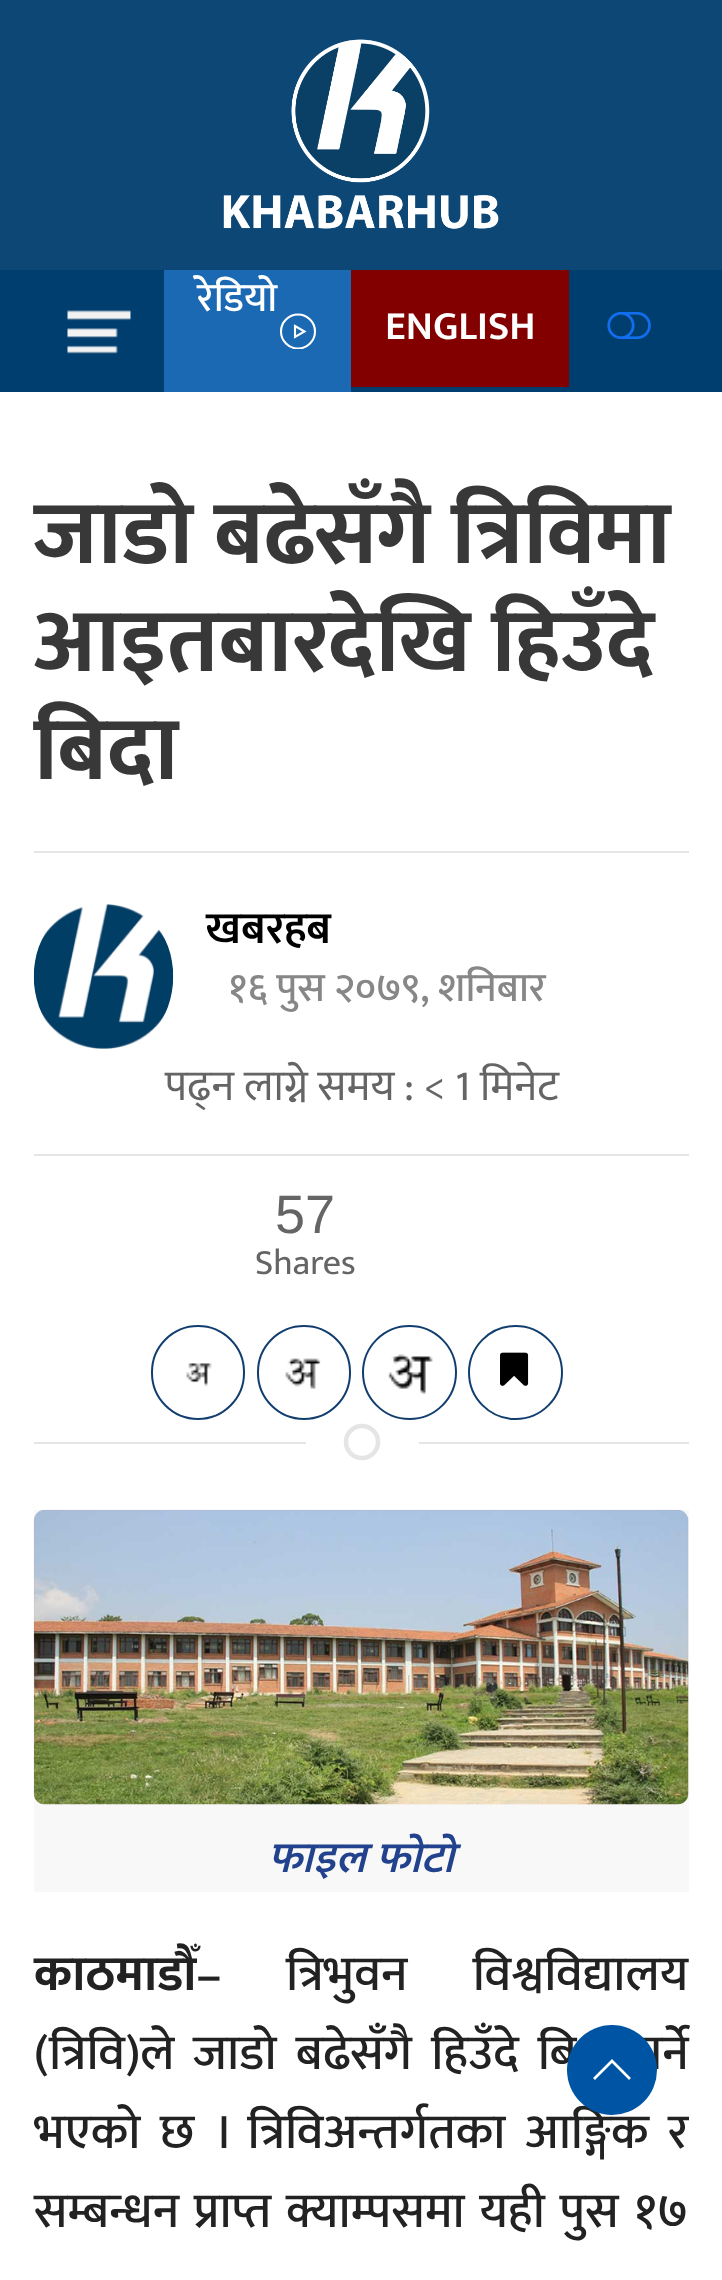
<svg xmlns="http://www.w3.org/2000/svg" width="722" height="2280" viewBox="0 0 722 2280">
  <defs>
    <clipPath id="clip1"><path d="M279 313h38v36H279z"/></clipPath>
  </defs>
  <rect width="100%" height="100%" fill="#fff"/>
  <path d="M0 0h722v270H0z" fill="#0d4776"/>
  <image x="223" y="39" width="276" height="190" href="img/1.png"/>
  <path d="M0 270h722v122H0z" fill="#003e6f"/>
  <image x="67" y="310" width="64" height="44" href="img/2.png"/>
  <path d="M164 270h187v122H164z" fill="#1b68b3"/>
  <path d="M295 326L304.5 331.5L295 337Z" fill="none" stroke="#fff" stroke-width="2.1"/>
  <g clip-path="url(#clip1)">
    <circle cx="298" cy="331.5" r="17" fill="none" stroke="#fff" stroke-width="2.1"/>
  </g>
  <path d="M351 270h218v117H351z" fill="#820000"/>
  <image x="607" y="311" width="44" height="29" href="img/3.png"/>
  <path d="M34 851h655v2H34z" fill="#e5e5e5"/>
  <image x="33" y="904" width="141" height="145" href="img/4.png"/>
  <path d="M34 1154h655v2H34z" fill="#e5e5e5"/>
  <rect x="152" y="1326" width="92" height="93" rx="46" fill="none" stroke="#113e6f" stroke-width="2"/>
  <image x="186" y="1363" width="26" height="24" href="img/5.png"/>
  <rect x="258" y="1326" width="92" height="93" rx="46" fill="none" stroke="#113e6f" stroke-width="2"/>
  <image x="285" y="1358" width="36" height="31" href="img/6.png"/>
  <circle cx="409.5" cy="1372.5" r="46.5" fill="none" stroke="#113e6f" stroke-width="2"/>
  <image x="388" y="1354" width="45" height="41" href="img/7.png"/>
  <circle cx="515.5" cy="1372.5" r="46.5" fill="none" stroke="#113e6f" stroke-width="2"/>
  <image x="500" y="1352" width="29" height="34" href="img/8.png"/>
  <circle cx="362" cy="1442" r="16" fill="none" stroke="#e5e5e5" stroke-width="4.5"/>
  <path d="M34 1442h272v2H34z" fill="#e5e5e5"/>
  <path d="M419 1442h270v2H419z" fill="#e5e5e5"/>
  <path d="M34 1510h655v382H34z" fill="#f8f8f8"/>
  <image x="33" y="1509" width="656" height="296" href="img/9.png"/>
  <text x="197" y="311" font-family="Mukta" font-size="40.5" font-weight="500" fill="#fff">रेडियो</text>
  <text x="385" y="339" font-family="Mukta" font-size="40.5" font-weight="600" fill="#fff">ENGLISH</text>
  <g font-family="Mukta" font-size="90" font-weight="bold" fill="#383838">
    <text x="34" y="563">जाडो बढेसँगै त्रिविमा</text>
    <text x="34" y="671">आइतबारदेखि हिउँदे</text>
    <text x="34" y="779">बिदा</text>
  </g>
  <text x="206" y="943" font-family="Mukta" font-size="45" font-weight="600" fill="#000">खबरहब</text>
  <text x="228" y="1001" font-family="Mukta" font-size="40.5" font-weight="500" fill="#878787">१६ पुस २०७९, शनिबार</text>
  <text x="165" y="1100" font-family="Mukta" font-size="43.25" fill="#656565">पढ्न लाग्ने समय : &lt; 1 मिनेट</text>
  <text x="275" y="1233" font-family="Liberation Sans" font-size="54" fill="#656565">57</text>
  <text x="255" y="1274" font-family="Mukta" font-size="36" fill="#656565">Shares</text>
  <text x="268" y="1872" font-family="Mukta" font-size="43.25" font-weight="600" font-style="italic" fill="#22428d">फाइल फोटो</text>
  <text x="34" y="1990" font-family="Mukta" font-size="49.5" font-weight="bold" fill="#222">काठमाडौँ–</text>
  <g font-family="Mukta" font-size="49.5" font-weight="500" fill="#222">
    <text x="286" y="1990" word-spacing="54">त्रिभुवन विश्वविद्यालय</text>
    <text x="34" y="2069">(त्रिवि)ले</text>
    <text x="193" y="2069" word-spacing="8">जाडो बढेसँगै हिउँदे बि</text>
    <text x="634" y="2069" word-spacing="8">गर्ने</text>
    <text x="34" y="2148" word-spacing="8.5">भएको छ । त्रिविअन्तर्गतका आङ्गिक र</text>
    <text x="34" y="2227" word-spacing="3.5">सम्बन्धन प्राप्त क्याम्पसमा यही पुस १७</text>
  </g>
  <circle cx="612" cy="2070" r="45" fill="#0054a4"/>
  <path d="M594 2079L612 2061L630 2079" fill="none" stroke="#fff" stroke-width="2.7"/>
</svg>
